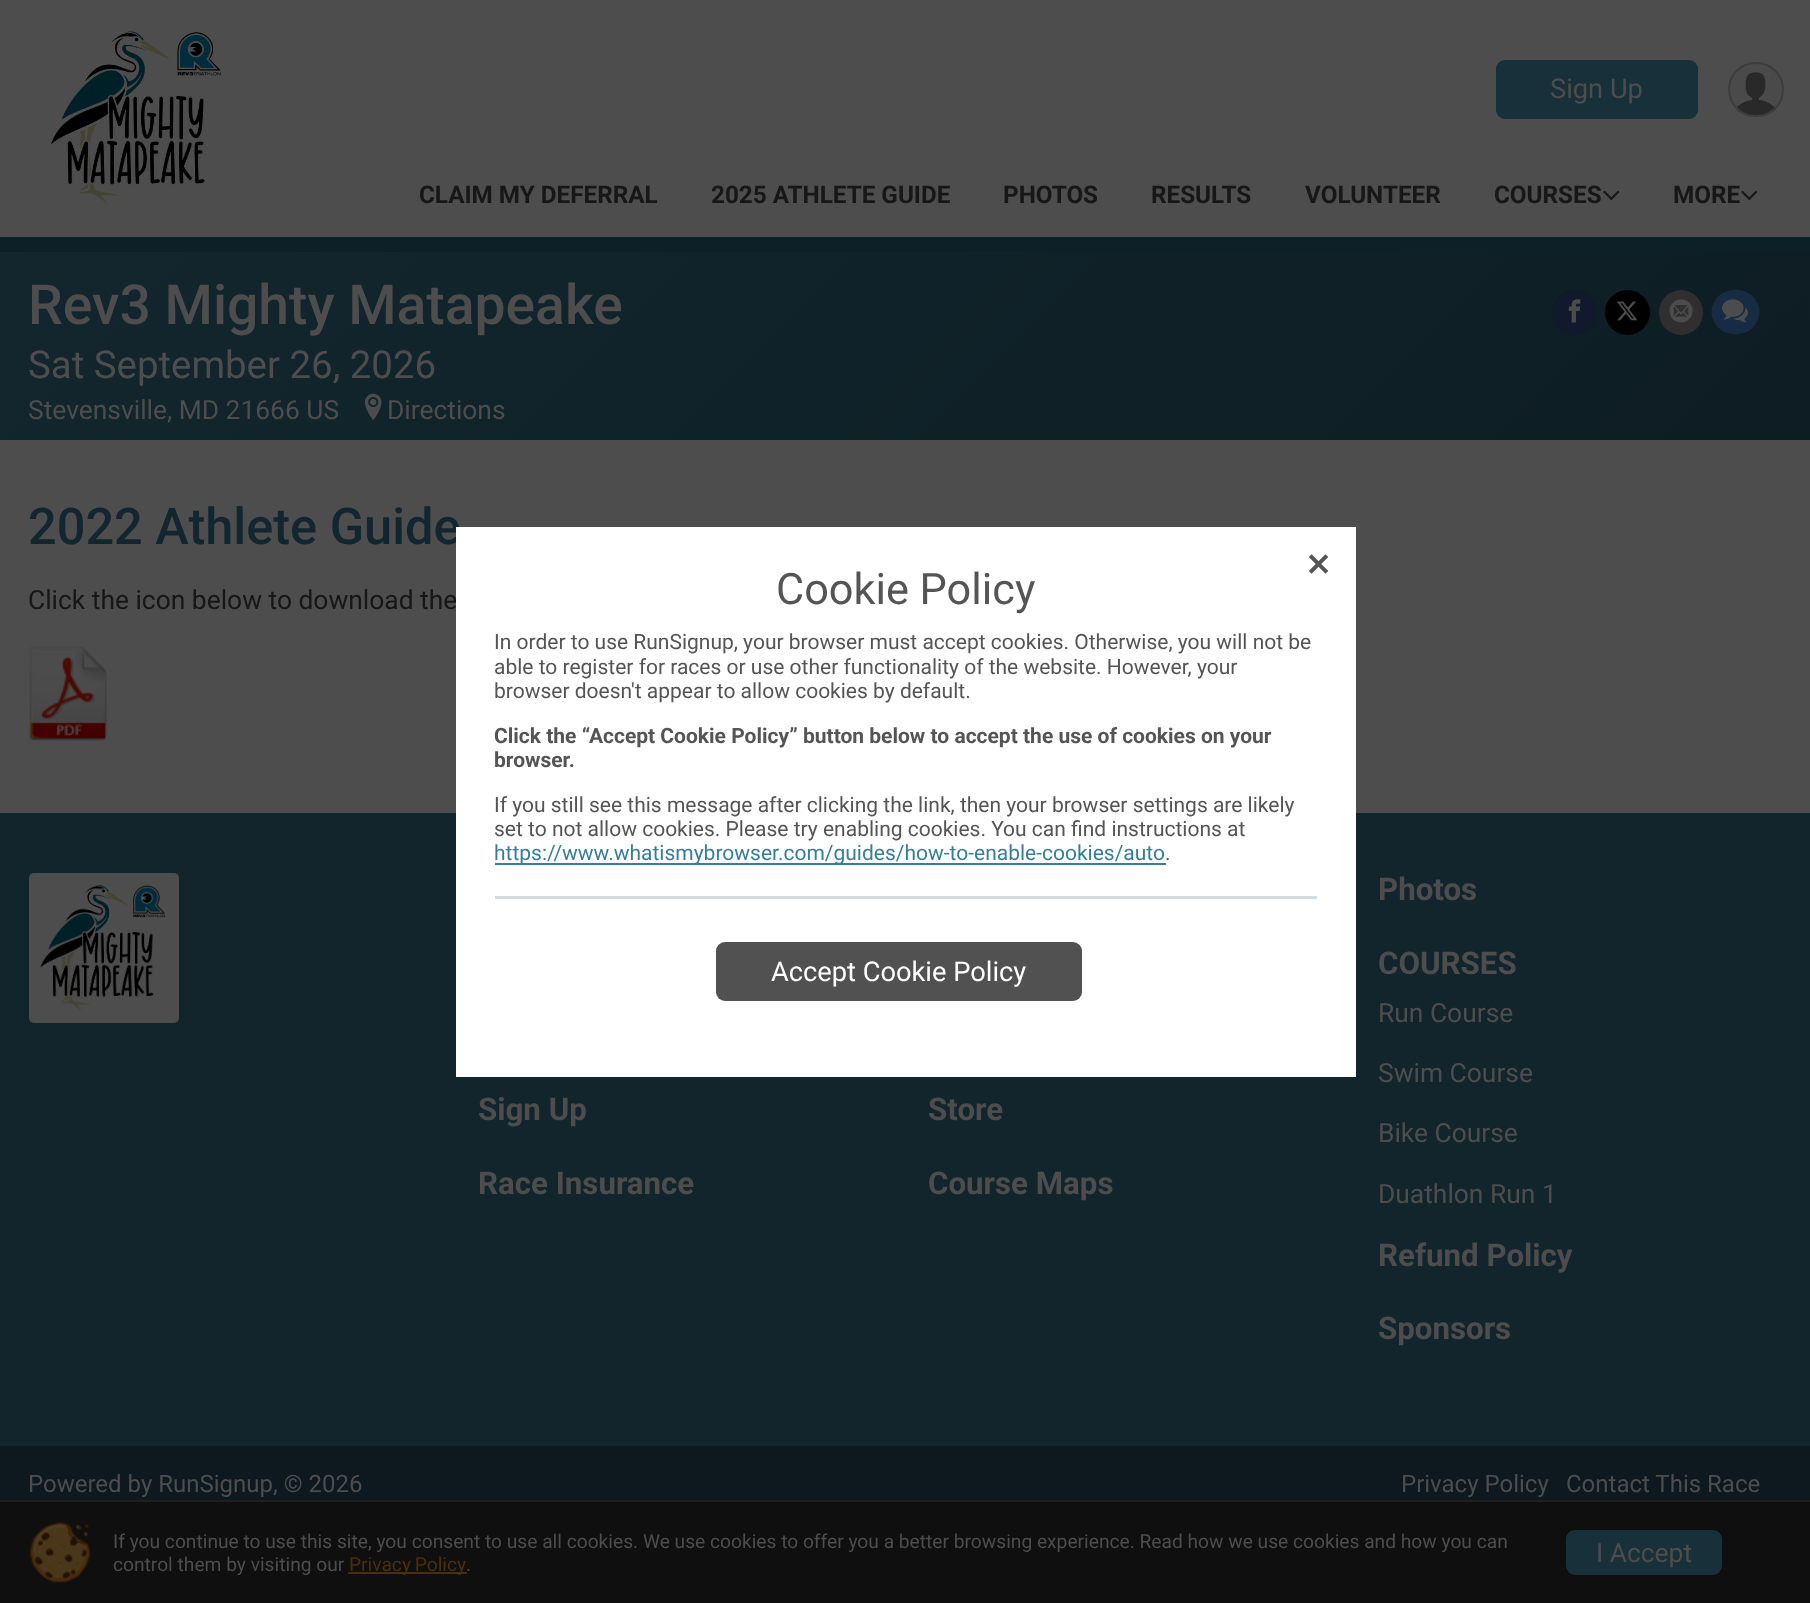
<svg xmlns="http://www.w3.org/2000/svg" width="1810" height="1603" viewBox="0 0 1810 1603">
  <defs>
    <linearGradient id="g1" gradientUnits="userSpaceOnUse" x1="1405" y1="845" x2="406" y2="-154"><stop offset="0" stop-color="#0d1d23"/><stop offset="1" stop-color="#13262e"/></linearGradient>
  </defs>
  <rect width="100%" height="100%" fill="#4d4d4d"/>
  <image x="51" y="31" width="170" height="173" href="img/1.png"/>
  <rect x="1496" y="60" width="202" height="59" rx="9" fill="#173039"/>
  <image x="1730" y="63" width="52" height="53" href="img/2.png"/>
  <rect x="1729" y="63" width="54" height="53" rx="26.5" fill="none" stroke="#3d3d3d" stroke-width="2"/>
  <image x="1603" y="190" width="17" height="11" href="img/3.png"/>
  <image x="1741" y="190" width="17" height="11" href="img/3.png"/>
  <path d="M0 252h1810v188H0z" fill="url(#g1)"/>
  <path d="M0 237h1810v15H0z" fill="#0e2027"/>
  <image x="364" y="393" width="18" height="27" href="img/4.png"/>
  <rect x="1553" y="290" width="43" height="45" rx="21.5" fill="#11192d"/>
  <image x="1568" y="299" width="13" height="24" href="img/5.png"/>
  <circle cx="1627.5" cy="312.5" r="22.5" fill="#000"/>
  <image x="1616" y="301" width="22" height="20" href="img/6.png"/>
  <rect x="1659" y="290" width="44" height="45" rx="22" fill="#2f2f2f"/>
  <image x="1669" y="299" width="24" height="24" href="img/7.png"/>
  <ellipse cx="1735.5" cy="312" rx="24" ry="22.5" fill="#172c44"/>
  <image x="1722" y="299" width="26" height="24" href="img/8.png"/>
  <image x="29" y="646" width="78" height="95" href="img/9.png"/>
  <path d="M0 1446h1810v54H0z" fill="#0d191f"/>
  <path d="M0 813h1810v633H0z" fill="#12252d"/>
  <rect x="29" y="873" width="150" height="150" rx="5" fill="#4d4d4d"/>
  <image x="40" y="885" width="125" height="126" href="img/10.png"/>
  <path d="M0 1502h1810v101H0z" fill="#0f0f0f"/>
  <path d="M0 1500h1810v2H0z" fill="#1f1f1f"/>
  <image x="30" y="1522" width="60" height="61" href="img/12.png"/>
  <path d="M348 1572h119v2H348z" fill="#4c2e0b"/>
  <rect x="1566" y="1530" width="156" height="45" rx="9" fill="#173039"/>
  <text x="1550" y="98" font-family="Roboto" font-size="27.25" fill="#4d4d4d">Sign Up</text>
  <g font-family="Roboto" font-size="24.25" font-weight="bold" fill="#171717">
    <text x="419" y="203">CLAIM MY DEFERRAL</text>
    <text x="711" y="203">2025 ATHLETE GUIDE</text>
    <text x="1003" y="203">PHOTOS</text>
    <text x="1151" y="203">RESULTS</text>
    <text x="1305" y="203">VOLUNTEER</text>
    <text x="1494" y="203">COURSES</text>
    <text x="1673" y="203">MORE</text>
  </g>
  <text x="28" y="324" font-family="Roboto" font-size="55.25" font-weight="500" fill="#4d4d4d">Rev3 Mighty Matapeake</text>
  <text x="28" y="378" font-family="Roboto" font-size="38.4" fill="#4d4d4d">Sat September 26, 2026</text>
  <g font-family="Roboto" font-size="26.4" fill="#4d4d4d">
    <text x="28" y="419">Stevensville, MD 21666 US</text>
    <text x="387" y="419">Directions</text>
  </g>
  <text x="28" y="544" font-family="Roboto" font-size="50.5" font-weight="500" fill="#11262e">2022 Athlete Guide</text>
  <text x="28" y="609" font-family="Roboto" font-size="26.4" fill="#171717">Click the icon below to download the</text>
  <g font-family="Roboto" font-size="31.25" font-weight="bold" fill="#4d4d4d">
    <text x="478" y="1120">Sign Up</text>
    <text x="478" y="1194">Race Insurance</text>
    <text x="928" y="1120">Store</text>
    <text x="928" y="1194">Course Maps</text>
    <text x="1378" y="900">Photos</text>
    <text x="1378" y="974">COURSES</text>
  </g>
  <g font-family="Roboto" font-size="26.4" fill="#4d4d4d">
    <text x="1378" y="1022">Run Course</text>
    <text x="1378" y="1082">Swim Course</text>
    <text x="1378" y="1142">Bike Course</text>
    <text x="1378" y="1203">Duathlon Run 1</text>
  </g>
  <g font-family="Roboto" font-size="31.25" font-weight="bold" fill="#4d4d4d">
    <text x="1378" y="1266">Refund Policy</text>
    <text x="1378" y="1339">Sponsors</text>
  </g>
  <g font-family="Roboto" font-size="24" fill="#4d4d4d">
    <text x="28" y="1492">Powered by RunSignup, © 2026</text>
    <text x="1401" y="1492">Privacy Policy</text>
    <text x="1566" y="1492">Contact This Race</text>
  </g>
  <path d="M457 528h898v548H457z" fill="none" stroke="#fff" stroke-width="2"/>
  <path d="M458 529h896v546H458z" fill="#fff"/>
  <image x="1308" y="554" width="21" height="20" href="img/11.png"/>
  <text x="776" y="604" font-family="Roboto" font-size="43.25" fill="#555">Cookie Policy</text>
  <g font-family="Roboto" font-size="21" fill="#555">
    <text x="494" y="649">In order to use RunSignup, your browser must accept cookies. Otherwise, you will not be</text>
    <text x="494" y="674">able to register for races or use other functionality of the website. However, your</text>
    <text x="494" y="698">browser doesn't appear to allow cookies by default.</text>
  </g>
  <g font-family="Roboto" font-size="21" font-weight="bold" fill="#555">
    <text x="494" y="743">Click the “Accept Cookie Policy” button below to accept the use of cookies on your</text>
    <text x="494" y="767">browser.</text>
  </g>
  <g font-family="Roboto" font-size="21" fill="#555">
    <text x="494" y="812">If you still see this message after clicking the link, then your browser settings are likely</text>
    <text x="494" y="836">set to not allow cookies. Please try enabling cookies. You can find instructions at</text>
  </g>
  <path d="M495 863h671v2H495z" fill="#387e99"/>
  <text x="494" y="860" font-family="Roboto" font-size="21" fill="#387e99">https://www.whatismybrowser.com/guides/how-to-enable-cookies/auto</text>
  <text x="1165" y="860" font-family="Roboto" font-size="21" fill="#555">.</text>
  <path d="M495 896h822v3H495z" fill="#d3dbdf"/>
  <rect x="716" y="942" width="366" height="59" rx="9" fill="#515151"/>
  <text x="771" y="981" font-family="Roboto" font-size="27.25" fill="#fff">Accept Cookie Policy</text>
  <g font-family="Roboto" font-size="19.2" fill="#4d4d4d">
    <text x="113" y="1548">If you continue to use this site, you consent to use all cookies. We use cookies to offer you a better browsing experience. Read how we use cookies and how you can</text>
    <text x="113" y="1571">control them by visiting our</text>
  </g>
  <text x="349" y="1571" word-spacing="-1" font-family="Roboto" font-size="19.2" fill="#4c2e0b">Privacy Policy</text>
  <text x="466" y="1571" font-family="Roboto" font-size="19.2" fill="#4d4d4d">.</text>
  <text x="1596" y="1562" font-family="Roboto" font-size="26.4" fill="#4d4d4d">I Accept</text>
</svg>
